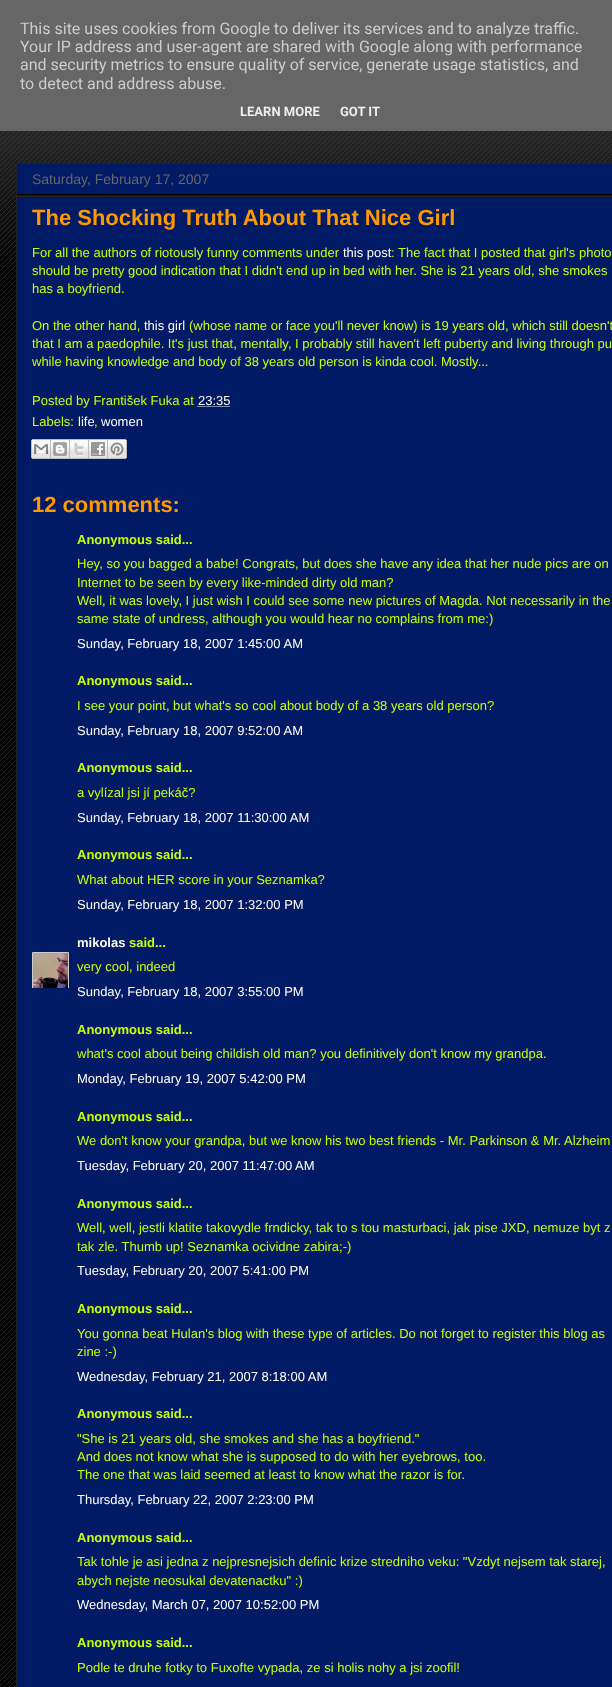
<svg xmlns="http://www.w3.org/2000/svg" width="612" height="1687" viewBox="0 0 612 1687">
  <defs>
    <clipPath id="clip1"><path d="M32 952h37v36H32z"/></clipPath>
  </defs>
  <rect width="100%" height="100%" fill="#000"/>
  <image x="0" y="131" width="612" height="1556" href="img/1.png"/>
  <path d="M0 0h612v131H0z" fill="#666"/>
  <image x="0" y="131" width="612" height="137" href="img/2.png"/>
  <path d="M16.5 163.5h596v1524H16.5z" fill="#001a66" stroke="#222"/>
  <path d="M17 194h595v1H17z" fill="#000"/>
  <path d="M17 196h595v1H17z" fill="#222"/>
  <path d="M197.5 406.5H230" fill="none" stroke="#fff" stroke-dasharray="1 1"/>
  <image x="31" y="439" width="20" height="20" href="img/3.png"/>
  <image x="51" y="439" width="19" height="20" href="img/4.png"/>
  <image x="70" y="439" width="19" height="20" href="img/5.png"/>
  <image x="89" y="439" width="19" height="20" href="img/6.png"/>
  <image x="108" y="439" width="19" height="20" href="img/7.png"/>
  <g clip-path="url(#clip1)">
    <path d="M32.5 952.5h36v36H32.5z" fill="none" stroke="#ccc"/>
  </g>
  <image x="33" y="953" width="35" height="35" href="img/8.png"/>
  <g font-family="Roboto" font-size="16" fill="#ccc">
    <text x="20" y="34">This site uses cookies from Google to deliver its services and to analyze traffic.</text>
    <text x="20" y="52">Your IP address and user-agent are shared with Google along with performance</text>
    <text x="20" y="70">and security metrics to ensure quality of service, generate usage statistics, and</text>
    <text x="20" y="89">to detect and address abuse.</text>
  </g>
  <g font-family="Roboto" font-size="13" font-weight="bold" fill="#eee">
    <text x="240" y="116">LEARN MORE</text>
    <text x="340" y="116">GOT IT</text>
  </g>
  <text x="32" y="184" font-family="Liberation Sans" font-size="14" fill="#666">Saturday, February 17, 2007</text>
  <text x="32" y="225" font-family="Liberation Sans" font-size="22" font-weight="bold" fill="#f90">The Shocking Truth About That Nice Girl</text>
  <text x="32" y="257" font-family="Liberation Sans" font-size="13" fill="#c6ff00">For all the authors of riotously funny comments under</text>
  <text x="343" y="257" font-family="Liberation Sans" font-size="13" fill="#fff">this post</text>
  <g font-family="Liberation Sans" font-size="13" fill="#c6ff00">
    <text x="391" y="257">: The fact that I posted that girl's photo</text>
    <text x="32" y="275">should be pretty good indication that I didn't end up in bed with her. She is 21 years old, she smokes</text>
    <text x="32" y="293">has a boyfriend.</text>
    <text x="32" y="330">On the other hand,</text>
  </g>
  <text x="144" y="330" font-family="Liberation Sans" font-size="13" fill="#fff">this girl</text>
  <g font-family="Liberation Sans" font-size="13" fill="#c6ff00">
    <text x="189" y="330">(whose name or face you'll never know) is 19 years old, which still doesn't</text>
    <text x="32" y="348">that I am a paedophile. It's just that, mentally, I probably still haven't left puberty and living through pu</text>
    <text x="32" y="366">while having knowledge and body of 38 years old person is kinda cool. Mostly...</text>
    <text x="32" y="405">Posted by František Fuka at</text>
  </g>
  <text x="198" y="405" font-family="Liberation Sans" font-size="13" fill="#fff">23:35</text>
  <text x="32" y="426" font-family="Liberation Sans" font-size="13" fill="#c6ff00">Labels:</text>
  <text x="78" y="426" font-family="Liberation Sans" font-size="13" fill="#fff">life</text>
  <text x="94" y="426" font-family="Liberation Sans" font-size="13" fill="#c6ff00">,</text>
  <text x="101" y="426" font-family="Liberation Sans" font-size="13" fill="#fff">women</text>
  <text x="32" y="512" font-family="Liberation Sans" font-size="22" font-weight="bold" fill="#f90">12 comments:</text>
  <text x="77" y="544" font-family="Liberation Sans" font-size="13" font-weight="bold" fill="#c6ff00">Anonymous said...</text>
  <g font-family="Liberation Sans" font-size="13" fill="#c6ff00">
    <text x="77" y="568">Hey, so you bagged a babe! Congrats, but does she have any idea that her nude pics are on</text>
    <text x="77" y="587">Internet to be seen by every like-minded dirty old man?</text>
    <text x="77" y="605">Well, it was lovely, I just wish I could see some new pictures of Magda. Not necessarily in the</text>
    <text x="77" y="623">same state of undress, although you would hear no complains from me:)</text>
  </g>
  <text x="77" y="648" font-family="Liberation Sans" font-size="13" fill="#fff">Sunday, February 18, 2007 1:45:00 AM</text>
  <text x="77" y="685" font-family="Liberation Sans" font-size="13" font-weight="bold" fill="#c6ff00">Anonymous said...</text>
  <text x="77" y="710" font-family="Liberation Sans" font-size="13" fill="#c6ff00">I see your point, but what's so cool about body of a 38 years old person?</text>
  <text x="77" y="735" font-family="Liberation Sans" font-size="13" fill="#fff">Sunday, February 18, 2007 9:52:00 AM</text>
  <text x="77" y="772" font-family="Liberation Sans" font-size="13" font-weight="bold" fill="#c6ff00">Anonymous said...</text>
  <text x="77" y="797" font-family="Liberation Sans" font-size="13" fill="#c6ff00">a vylízal jsi jí pekáč?</text>
  <text x="77" y="822" font-family="Liberation Sans" font-size="13" fill="#fff">Sunday, February 18, 2007 11:30:00 AM</text>
  <text x="77" y="859" font-family="Liberation Sans" font-size="13" font-weight="bold" fill="#c6ff00">Anonymous said...</text>
  <text x="77" y="884" font-family="Liberation Sans" font-size="13" fill="#c6ff00">What about HER score in your Seznamka?</text>
  <text x="77" y="909" font-family="Liberation Sans" font-size="13" fill="#fff">Sunday, February 18, 2007 1:32:00 PM</text>
  <text x="77" y="947" font-family="Liberation Sans" font-size="13" font-weight="bold" fill="#fff">mikolas</text>
  <text x="129" y="947" font-family="Liberation Sans" font-size="13" font-weight="bold" fill="#c6ff00">said...</text>
  <text x="77" y="971" font-family="Liberation Sans" font-size="13" fill="#c6ff00">very cool, indeed</text>
  <text x="77" y="996" font-family="Liberation Sans" font-size="13" fill="#fff">Sunday, February 18, 2007 3:55:00 PM</text>
  <text x="77" y="1034" font-family="Liberation Sans" font-size="13" font-weight="bold" fill="#c6ff00">Anonymous said...</text>
  <text x="77" y="1058" font-family="Liberation Sans" font-size="13" fill="#c6ff00">what's cool about being childish old man? you definitively don't know my grandpa.</text>
  <text x="77" y="1083" font-family="Liberation Sans" font-size="13" fill="#fff">Monday, February 19, 2007 5:42:00 PM</text>
  <text x="77" y="1121" font-family="Liberation Sans" font-size="13" font-weight="bold" fill="#c6ff00">Anonymous said...</text>
  <text x="77" y="1145" font-family="Liberation Sans" font-size="13" fill="#c6ff00">We don't know your grandpa, but we know his two best friends - Mr. Parkinson &amp; Mr. Alzheim</text>
  <text x="77" y="1170" font-family="Liberation Sans" font-size="13" fill="#fff">Tuesday, February 20, 2007 11:47:00 AM</text>
  <text x="77" y="1208" font-family="Liberation Sans" font-size="13" font-weight="bold" fill="#c6ff00">Anonymous said...</text>
  <g font-family="Liberation Sans" font-size="13" fill="#c6ff00">
    <text x="77" y="1232">Well, well, jestli klatite takovydle frndicky, tak to s tou masturbaci, jak pise JXD, nemuze byt z</text>
    <text x="77" y="1251">tak zle. Thumb up! Seznamka ocividne zabira;-)</text>
  </g>
  <text x="77" y="1275" font-family="Liberation Sans" font-size="13" fill="#fff">Tuesday, February 20, 2007 5:41:00 PM</text>
  <text x="77" y="1313" font-family="Liberation Sans" font-size="13" font-weight="bold" fill="#c6ff00">Anonymous said...</text>
  <g font-family="Liberation Sans" font-size="13" fill="#c6ff00">
    <text x="77" y="1338">You gonna beat Hulan's blog with these type of articles. Do not forget to register this blog as</text>
    <text x="77" y="1356">zine :-)</text>
  </g>
  <text x="77" y="1381" font-family="Liberation Sans" font-size="13" fill="#fff">Wednesday, February 21, 2007 8:18:00 AM</text>
  <text x="77" y="1418" font-family="Liberation Sans" font-size="13" font-weight="bold" fill="#c6ff00">Anonymous said...</text>
  <g font-family="Liberation Sans" font-size="13" fill="#c6ff00">
    <text x="77" y="1443">"She is 21 years old, she smokes and she has a boyfriend."</text>
    <text x="77" y="1461">And does not know what she is supposed to do with her eyebrows, too.</text>
    <text x="77" y="1479">The one that was laid seemed at least to know what the razor is for.</text>
  </g>
  <text x="77" y="1504" font-family="Liberation Sans" font-size="13" fill="#fff">Thursday, February 22, 2007 2:23:00 PM</text>
  <text x="77" y="1542" font-family="Liberation Sans" font-size="13" font-weight="bold" fill="#c6ff00">Anonymous said...</text>
  <g font-family="Liberation Sans" font-size="13" fill="#c6ff00">
    <text x="77" y="1566">Tak tohle je asi jedna z nejpresnejsich definic krize stredniho veku: "Vzdyt nejsem tak starej,</text>
    <text x="77" y="1585">abych nejste neosukal devatenactku" :)</text>
  </g>
  <text x="77" y="1609" font-family="Liberation Sans" font-size="13" fill="#fff">Wednesday, March 07, 2007 10:52:00 PM</text>
  <text x="77" y="1647" font-family="Liberation Sans" font-size="13" font-weight="bold" fill="#c6ff00">Anonymous said...</text>
  <text x="77" y="1672" font-family="Liberation Sans" font-size="13" fill="#c6ff00">Podle te druhe fotky to Fuxofte vypada, ze si holis nohy a jsi zoofil!</text>
</svg>
